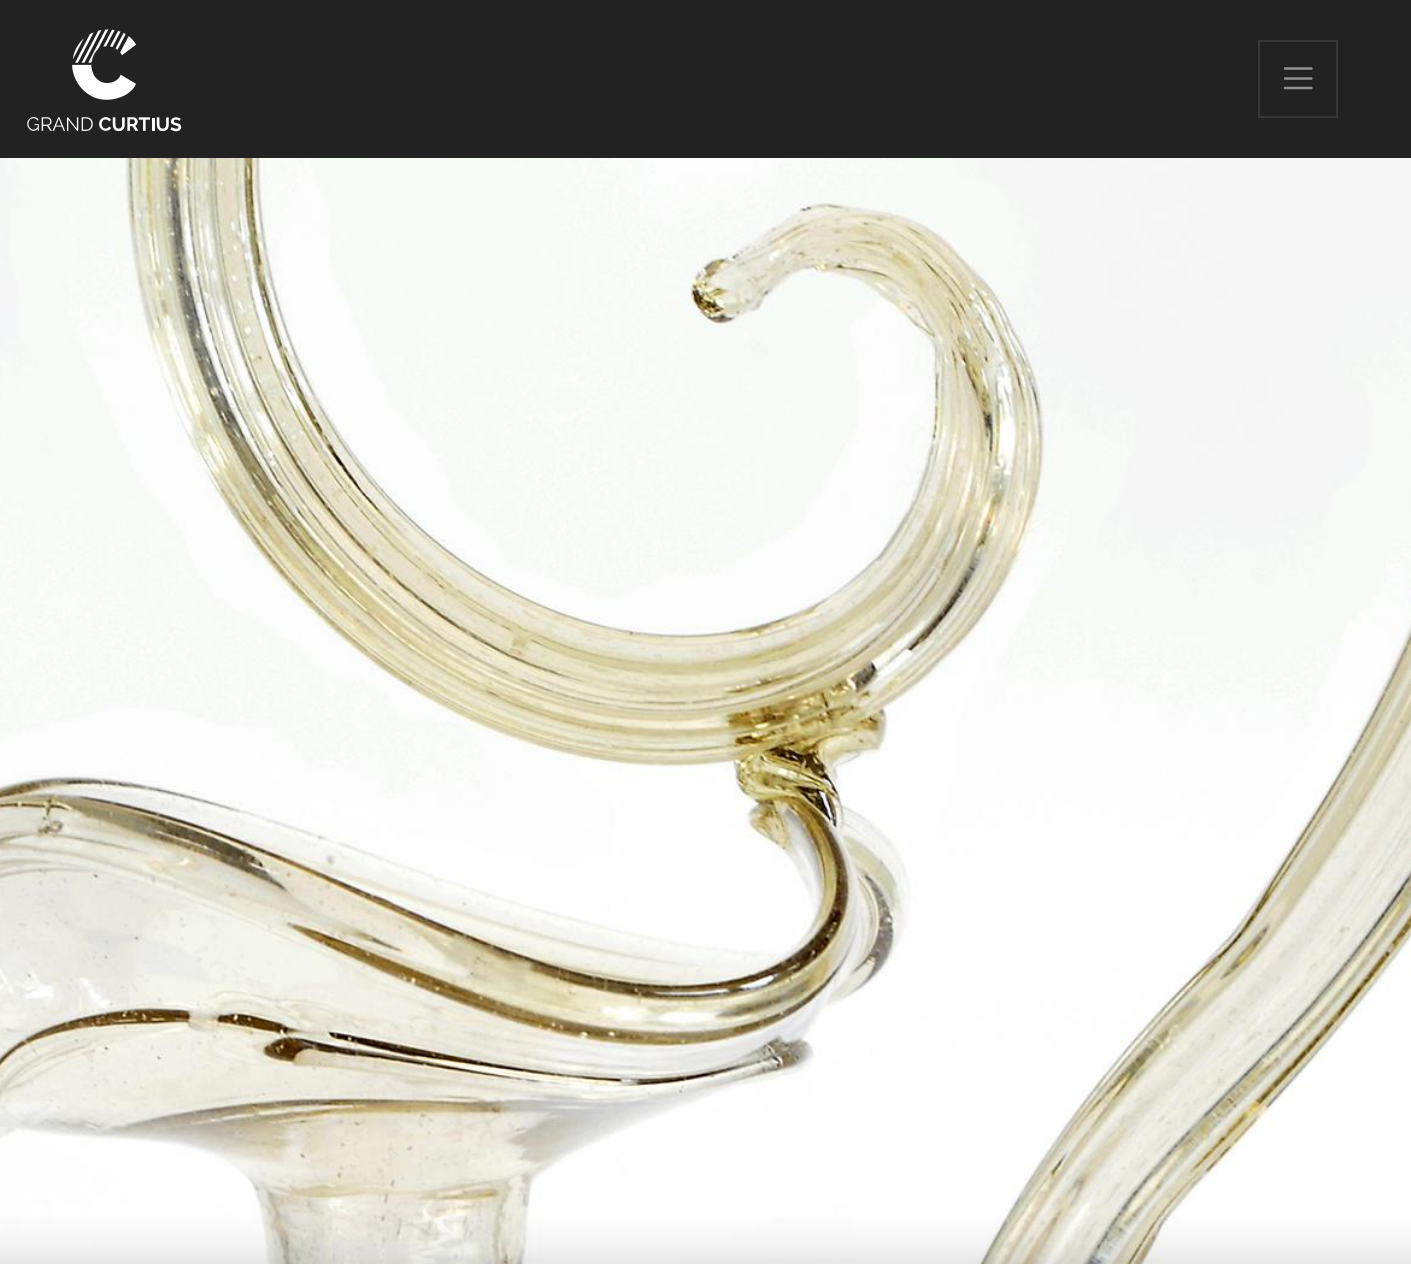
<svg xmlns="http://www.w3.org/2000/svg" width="1411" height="1264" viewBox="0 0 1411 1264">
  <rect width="100%" height="100%" fill="#222"/>
  <image x="72" y="29" width="65" height="71" href="img/1.png"/>
  <image x="27" y="117" width="155" height="15" href="img/2.png"/>
  <path d="M1259 41h78v76H1259z" fill="none" stroke="#383838" stroke-width="2"/>
  <path d="M1285 68.5H1311.5M1285 78.5H1311.5M1285 88H1311.5" fill="none" stroke="#919191" stroke-width="2.4" stroke-linecap="round"/>
  <image x="0" y="158" width="1411" height="1106" href="img/3.png"/>
</svg>
